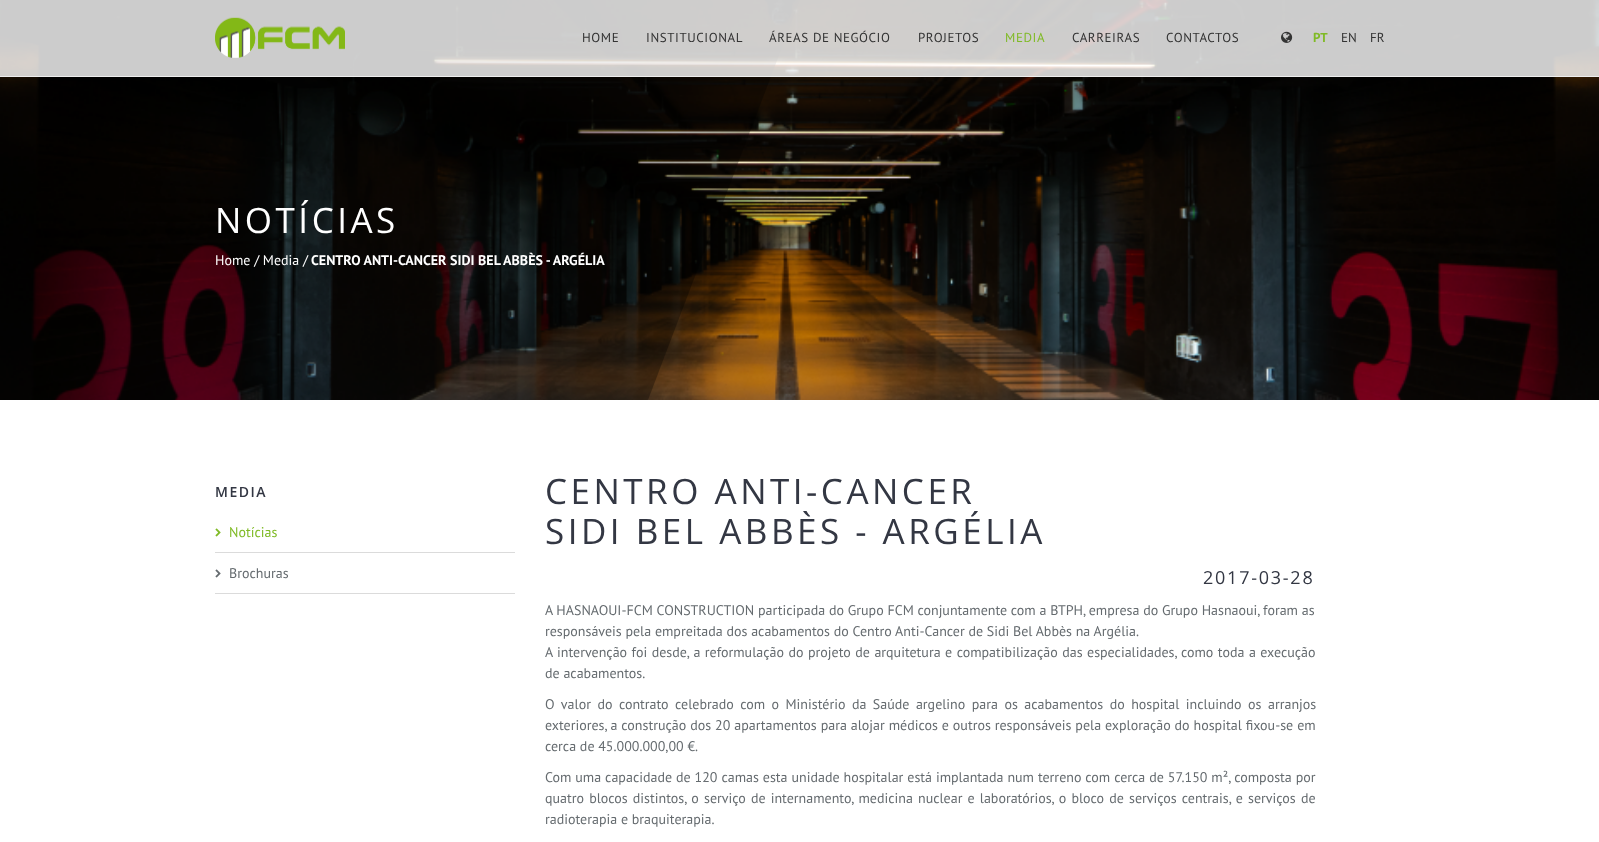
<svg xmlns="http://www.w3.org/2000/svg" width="1599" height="842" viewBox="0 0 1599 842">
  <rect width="100%" height="100%" fill="#fff"/>
  <image x="0" y="0" width="1599" height="400" href="img/3.png"/>
  <path d="M0 0V400H648L800 0Z" fill="#0000004d"/>
  <path d="M0 0h1599v76H0z" fill="#ffffffcc"/>
  <path d="M0 76h1599v1H0z" fill="#eee"/>
  <image x="215" y="17" width="130" height="41" href="img/1.png"/>
  <image x="1281" y="31" width="12" height="12" href="img/2.png"/>
  <path d="M215 552h300v1H215z" fill="#dbdbdb"/>
  <image x="215" y="528" width="6" height="9" href="img/4.png"/>
  <path d="M215 593h300v1H215z" fill="#dbdbdb"/>
  <image x="215" y="569" width="6" height="9" href="img/5.png"/>
  <g font-family="PT Sans" font-size="13" letter-spacing="0.6" fill="#333">
    <text x="582" y="42">HOME</text>
    <text x="646" y="42">INSTITUCIONAL</text>
    <text x="769" y="42">ÁREAS DE NEGÓCIO</text>
    <text x="918" y="42">PROJETOS</text>
  </g>
  <text x="1005" y="42" font-family="PT Sans" font-size="13" letter-spacing="0.6" fill="#7fba25">MEDIA</text>
  <g font-family="PT Sans" font-size="13" letter-spacing="0.6" fill="#333">
    <text x="1072" y="42">CARREIRAS</text>
    <text x="1166" y="42">CONTACTOS</text>
  </g>
  <text x="1313" y="42" font-family="PT Sans" font-size="13" font-weight="bold" fill="#7fba25">PT</text>
  <g font-family="PT Sans" font-size="13" fill="#333">
    <text x="1341" y="42">EN</text>
    <text x="1370" y="42">FR</text>
  </g>
  <text x="215" y="233" font-family="Open Sans" font-size="35" letter-spacing="3.5" fill="#fff">NOTÍCIAS</text>
  <text x="215" y="265" font-family="PT Sans" font-size="14" fill="#fff">Home / Media /</text>
  <text x="311" y="265" font-family="PT Sans" font-size="14" font-weight="bold" fill="#fff">CENTRO ANTI-CANCER SIDI BEL ABBÈS - ARGÉLIA</text>
  <text x="215" y="497" font-family="Open Sans" font-size="14" font-weight="600" letter-spacing="1.5" fill="#333743">MEDIA</text>
  <text x="229" y="537" font-family="PT Sans" font-size="14" fill="#7fba25">Notícias</text>
  <text x="229" y="578" font-family="PT Sans" font-size="14" fill="#656b6f">Brochuras</text>
  <g font-family="Open Sans" font-size="35" letter-spacing="3.5" fill="#333743">
    <text x="545" y="504">CENTRO ANTI-CANCER</text>
    <text x="545" y="544">SIDI BEL ABBÈS - ARGÉLIA</text>
  </g>
  <text x="1203" y="584" font-family="Open Sans" font-size="18" letter-spacing="1.75" fill="#333743">2017-03-28</text>
  <g font-family="PT Sans" font-size="14" fill="#656b6f">
    <text x="545" y="615">A HASNAOUI-FCM CONSTRUCTION participada do Grupo FCM conjuntamente com a BTPH, empresa do Grupo Hasnaoui, foram as</text>
    <text x="545" y="636">responsáveis pela empreitada dos acabamentos do Centro Anti-Cancer de Sidi Bel Abbès na Argélia.</text>
    <text x="545" y="657" word-spacing="0.75">A intervenção foi desde, a reformulação do projeto de arquitetura e compatibilização das especialidades, como toda a execução</text>
    <text x="545" y="678">de acabamentos.</text>
    <text x="545" y="709" word-spacing="2.75">O valor do contrato celebrado com o Ministério da Saúde argelino para os acabamentos do hospital incluindo os arranjos</text>
    <text x="545" y="730" word-spacing="0.2">exteriores, a construção dos 20 apartamentos para alojar médicos e outros responsáveis pela exploração do hospital fixou-se em</text>
    <text x="545" y="751">cerca de 45.000.000,00 €.</text>
    <text x="545" y="782" word-spacing="0.2">Com uma capacidade de 120 camas esta unidade hospitalar está implantada num terreno com cerca de 57.150 m², composta por</text>
    <text x="545" y="803" word-spacing="1.4">quatro blocos distintos, o serviço de internamento, medicina nuclear e laboratórios, o bloco de serviços centrais, e serviços de</text>
    <text x="545" y="824">radioterapia e braquiterapia.</text>
  </g>
</svg>
